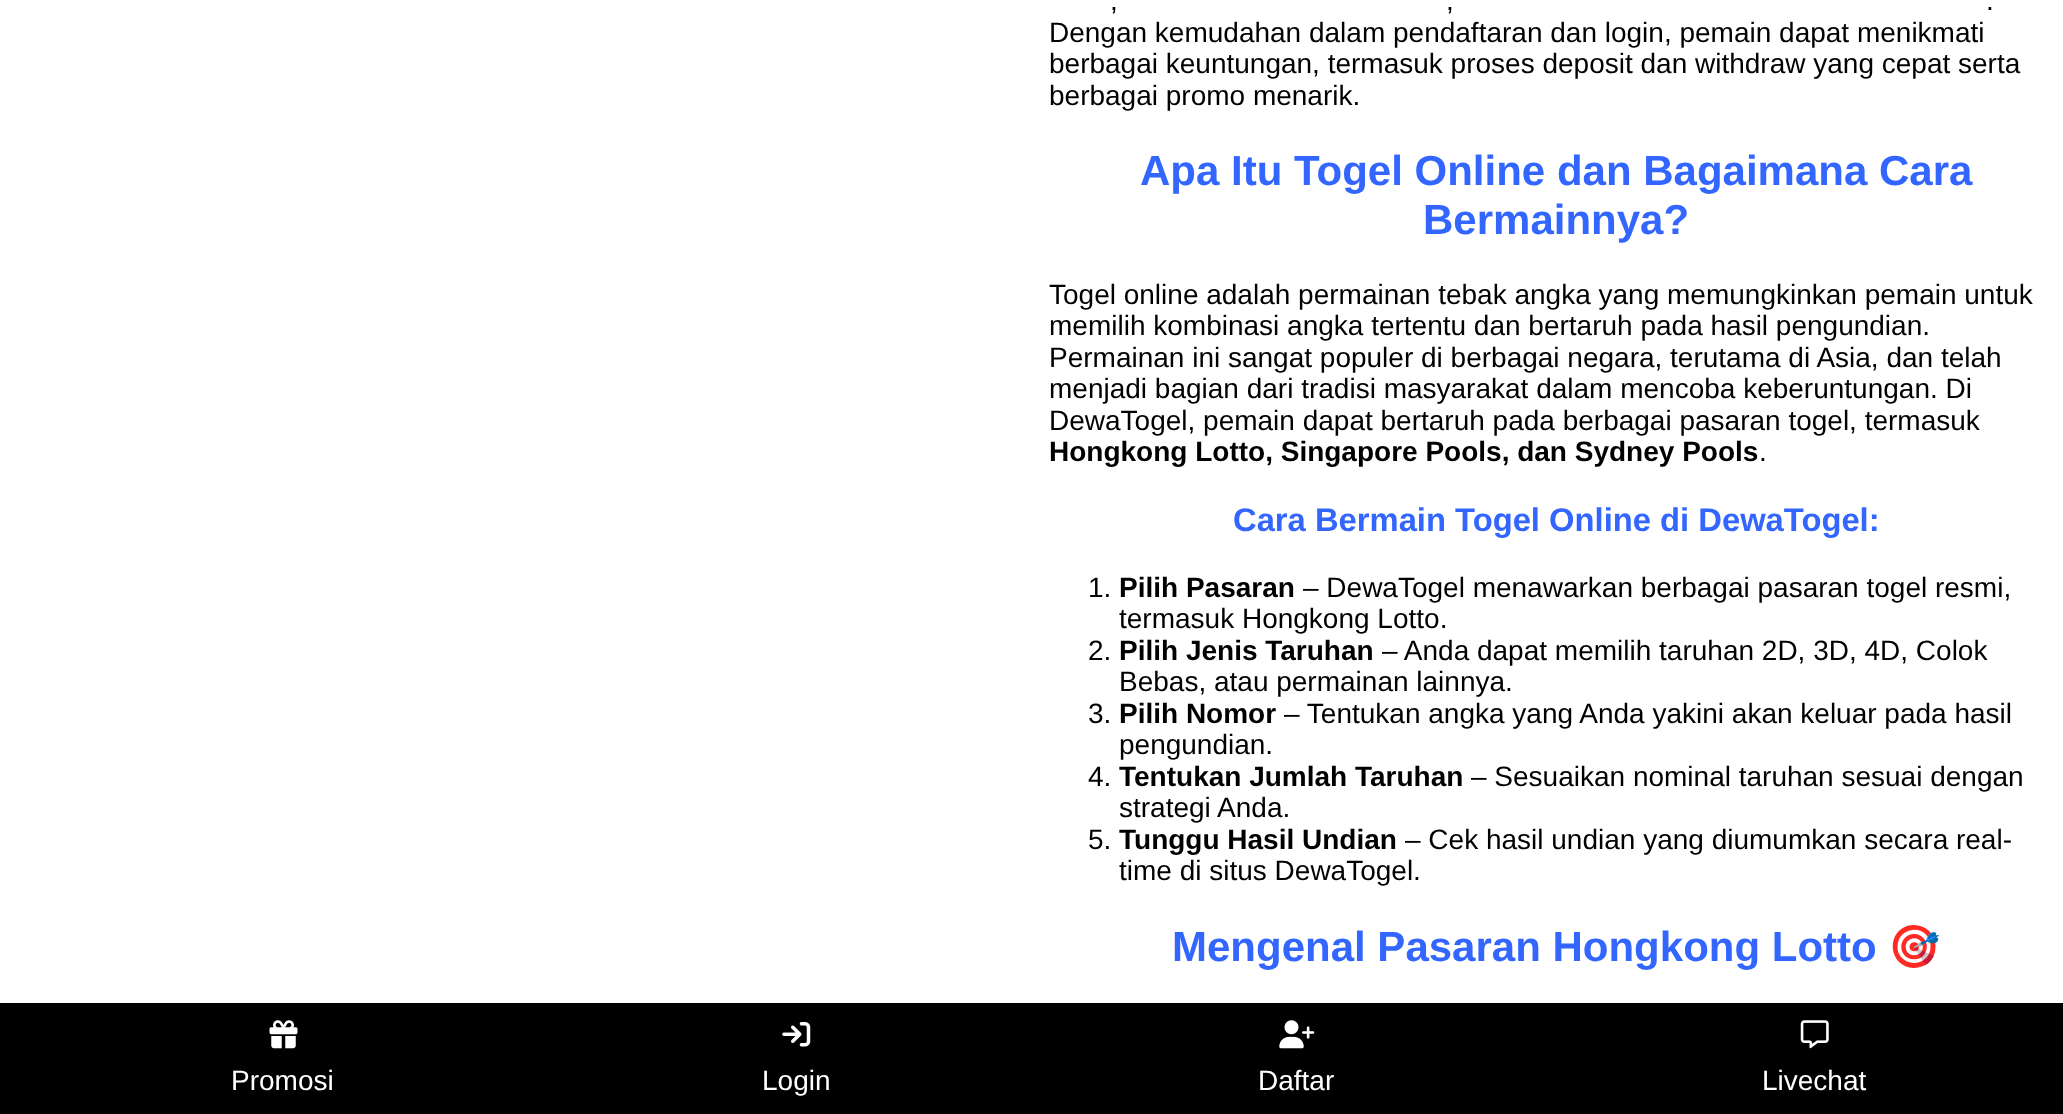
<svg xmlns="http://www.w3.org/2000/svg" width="2063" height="1114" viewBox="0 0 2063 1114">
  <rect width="100%" height="100%" fill="#fff"/>
  <path d="M0 1003h2063v111H0z" fill="#000"/>
  <image x="269" y="1020" width="29" height="29" href="img/1.png"/>
  <image x="782" y="1022" width="29" height="25" href="img/2.png"/>
  <image x="1279" y="1020" width="36" height="29" href="img/3.png"/>
  <image x="1800" y="1020" width="29" height="29" href="img/4.png"/>
  <g font-family="Liberation Sans" font-size="28" fill="#000">
    <text x="1110" y="10">,</text>
    <text x="1446" y="10">,</text>
    <text x="1986" y="10">.</text>
    <text x="1049" y="42">Dengan kemudahan dalam pendaftaran dan login, pemain dapat menikmati</text>
    <text x="1049" y="73">berbagai keuntungan, termasuk proses deposit dan withdraw yang cepat serta</text>
    <text x="1049" y="105">berbagai promo menarik.</text>
  </g>
  <g font-family="Liberation Sans" font-size="42" font-weight="bold" fill="#36f">
    <text x="1140" y="185">Apa Itu Togel Online dan Bagaimana Cara</text>
    <text x="1423" y="234">Bermainnya?</text>
  </g>
  <g font-family="Liberation Sans" font-size="28" fill="#000">
    <text x="1049" y="304">Togel online adalah permainan tebak angka yang memungkinkan pemain untuk</text>
    <text x="1049" y="335">memilih kombinasi angka tertentu dan bertaruh pada hasil pengundian.</text>
    <text x="1049" y="367">Permainan ini sangat populer di berbagai negara, terutama di Asia, dan telah</text>
    <text x="1049" y="398">menjadi bagian dari tradisi masyarakat dalam mencoba keberuntungan. Di</text>
    <text x="1049" y="430">DewaTogel, pemain dapat bertaruh pada berbagai pasaran togel, termasuk</text>
  </g>
  <text x="1049" y="461" font-family="Liberation Sans" font-size="28" font-weight="bold" fill="#000">Hongkong Lotto, Singapore Pools, dan Sydney Pools</text>
  <text x="1759" y="461" font-family="Liberation Sans" font-size="28" fill="#000">.</text>
  <text x="1233" y="531" font-family="Liberation Sans" font-size="32.75" font-weight="bold" fill="#36f">Cara Bermain Togel Online di DewaTogel:</text>
  <text x="1088" y="597" font-family="Liberation Sans" font-size="28" fill="#000">1.</text>
  <text x="1119" y="597" font-family="Liberation Sans" font-size="28" font-weight="bold" fill="#000">Pilih Pasaran</text>
  <g font-family="Liberation Sans" font-size="28" fill="#000">
    <text x="1303" y="597">– DewaTogel menawarkan berbagai pasaran togel resmi,</text>
    <text x="1119" y="628">termasuk Hongkong Lotto.</text>
    <text x="1088" y="660">2.</text>
  </g>
  <text x="1119" y="660" font-family="Liberation Sans" font-size="28" font-weight="bold" fill="#000">Pilih Jenis Taruhan</text>
  <g font-family="Liberation Sans" font-size="28" fill="#000">
    <text x="1382" y="660">– Anda dapat memilih taruhan 2D, 3D, 4D, Colok</text>
    <text x="1119" y="691">Bebas, atau permainan lainnya.</text>
    <text x="1088" y="723">3.</text>
  </g>
  <text x="1119" y="723" font-family="Liberation Sans" font-size="28" font-weight="bold" fill="#000">Pilih Nomor</text>
  <g font-family="Liberation Sans" font-size="28" fill="#000">
    <text x="1284" y="723">– Tentukan angka yang Anda yakini akan keluar pada hasil</text>
    <text x="1119" y="754">pengundian.</text>
    <text x="1088" y="786">4.</text>
  </g>
  <text x="1119" y="786" font-family="Liberation Sans" font-size="28" font-weight="bold" fill="#000">Tentukan Jumlah Taruhan</text>
  <g font-family="Liberation Sans" font-size="28" fill="#000">
    <text x="1471" y="786">– Sesuaikan nominal taruhan sesuai dengan</text>
    <text x="1119" y="817">strategi Anda.</text>
    <text x="1088" y="849">5.</text>
  </g>
  <text x="1119" y="849" font-family="Liberation Sans" font-size="28" font-weight="bold" fill="#000">Tunggu Hasil Undian</text>
  <g font-family="Liberation Sans" font-size="28" fill="#000">
    <text x="1405" y="849">– Cek hasil undian yang diumumkan secara real-</text>
    <text x="1119" y="880">time di situs DewaTogel.</text>
  </g>
  <text x="1172" y="961" font-family="Liberation Sans" font-size="42" font-weight="bold" fill="#36f">Mengenal Pasaran Hongkong Lotto</text>
  <text x="1888" y="961" font-family="Noto Color Emoji" font-size="42" font-weight="bold" fill="#36f">🎯</text>
  <g font-family="Liberation Sans" font-size="28" fill="#fff">
    <text x="231" y="1090">Promosi</text>
    <text x="762" y="1090">Login</text>
    <text x="1258" y="1090">Daftar</text>
    <text x="1762" y="1090">Livechat</text>
  </g>
</svg>
